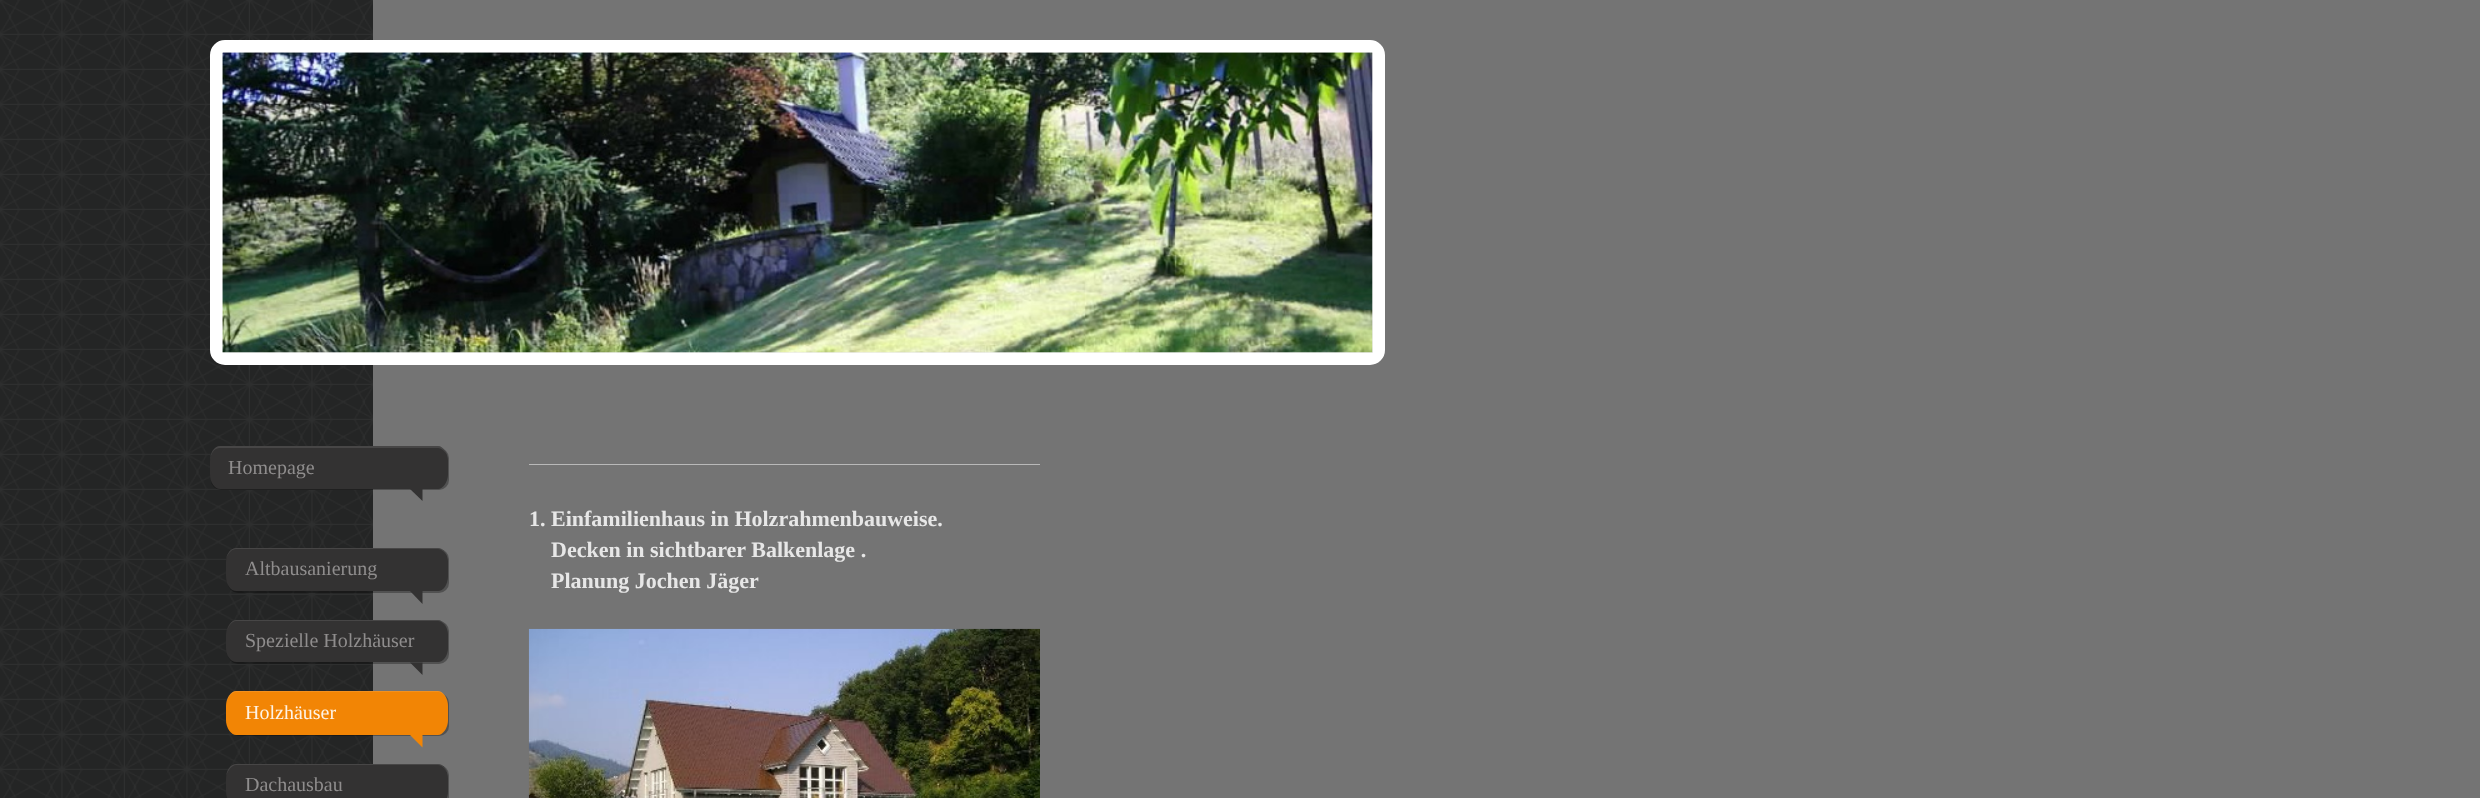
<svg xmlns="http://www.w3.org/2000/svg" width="2480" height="798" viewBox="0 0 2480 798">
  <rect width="100%" height="100%" fill="#242525"/>
  <image x="0" y="0" width="373" height="798" href="img/1.png"/>
  <path d="M373 0h2107v798H373z" fill="#747474"/>
  <rect x="216.5" y="46.5" width="1162" height="312" rx="8.5" fill="none" stroke="#fff" stroke-width="13"/>
  <image x="222" y="52" width="1151" height="301" href="img/2.png"/>
  <path d="M223 53h1150v300H223z" fill="#eee"/>
  <image x="222" y="52" width="1151" height="301" href="img/3.png"/>
  <rect x="211" y="448" width="238" height="42" rx="10" fill="#0000004d" filter="blur(0.5px)"/>
  <path d="M220 446H438C443 446 448 453 448 461V474C448 482 443 489 438 489H220C214 489 210 482 210 474V461C210 453 214 446 220 446Z" fill="#333232"/>
  <path d="M220 448H438C441 448 445 451 447 455C445 450 442 446 438 446H220C214 446 210 453 210 461V462C210 454 214 448 220 448Z" fill="#ffffff1a"/>
  <path d="M410 489H422.5V501Z" fill="#333232"/>
  <rect x="228" y="549" width="221" height="44" rx="10" fill="#0000004d" filter="blur(0.5px)"/>
  <path d="M236 548H438C443 548 448 554 448 562V576C448 585 443 591 438 591H236C231 591 226 585 226 576V562C226 554 231 548 236 548Z" fill="#333232"/>
  <path d="M236 549H438C441 549 445 552 447 556C445 551 442 548 438 548H236C231 548 227 553 226 559C228 553 232 549 236 549Z" fill="#ffffff1a"/>
  <path d="M410 591H422.5V604Z" fill="#333232"/>
  <rect x="228" y="621" width="221" height="43" rx="10" fill="#0000004d" filter="blur(0.5px)"/>
  <path d="M236 620H438C443 620 448 627 448 635V648C448 656 443 662 438 662H236C231 662 226 656 226 648V635C226 627 231 620 236 620Z" fill="#333232"/>
  <path d="M236 621H438C441 621 445 624 447 629C445 624 442 620 438 620H236C232 620 228 625 227 632C228 626 232 621 236 621Z" fill="#ffffff1a"/>
  <path d="M410 662.5H422.5V675Z" fill="#333232"/>
  <rect x="228" y="693" width="221" height="43" rx="10" fill="#0000004d" filter="blur(0.5px)"/>
  <path d="M236 691H438C443 691 448 698 448 706V720C448 728 443 735 438 735H236C231 735 226 728 226 720V706C226 698 231 691 236 691Z" fill="#f28505"/>
  <path d="M236 692H438C441 692 445 695 447 700C445 695 442 691 438 691H236C231 691 227 697 226 704C228 697 232 692 236 692Z" fill="#ffffff1a"/>
  <path d="M410 735H422.5V747.5Z" fill="#f28505"/>
  <rect x="228" y="765" width="221" height="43" rx="10" fill="#0000004d" filter="blur(0.5px)"/>
  <path d="M236 764H438C443 764 448 770 448 779V791C448 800 443 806 438 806H236C231 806 226 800 226 791V779C226 770 231 764 236 764Z" fill="#333232"/>
  <path d="M236 765H438C442 765 445 769 447 773C445 768 442 764 438 764H236C231 764 227 769 226 776C228 770 232 765 236 765Z" fill="#ffffff1a"/>
  <path d="M529 464h511v1H529z" fill="#b9b9b9"/>
  <image x="528" y="628" width="512" height="170" href="img/4.png"/>
  <g font-family="Liberation Serif" font-size="20" fill="#8f8d8d">
    <text x="228" y="474">Homepage</text>
    <text x="245" y="575">Altbausanierung</text>
    <text x="245" y="647">Spezielle Holzhäuser</text>
  </g>
  <text x="245" y="719" font-family="Liberation Serif" font-size="20" fill="#fef3e6">Holzhäuser</text>
  <text x="245" y="791" font-family="Liberation Serif" font-size="20" fill="#8f8d8d">Dachausbau</text>
  <g font-family="Liberation Serif" font-size="22" font-weight="bold" fill="#e7e7e7">
    <text x="529" y="526">1. Einfamilienhaus in Holzrahmenbauweise.</text>
    <text x="551" y="557">Decken in sichtbarer Balkenlage .</text>
    <text x="551" y="588">Planung Jochen Jäger</text>
  </g>
</svg>
